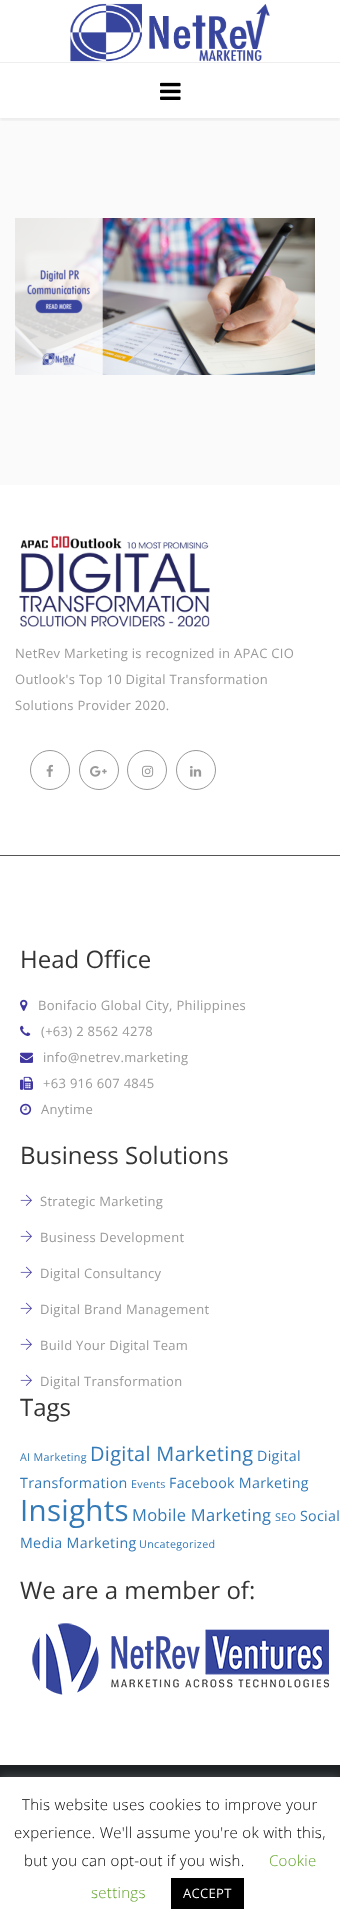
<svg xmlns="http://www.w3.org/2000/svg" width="340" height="1926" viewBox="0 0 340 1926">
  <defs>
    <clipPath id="clip1"><path d="M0 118h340v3H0z"/></clipPath>
  </defs>
  <rect width="100%" height="100%" fill="#fff"/>
  <path d="M0 62h340v1H0z" fill="#eee"/>
  <image x="70" y="3" width="200" height="59" href="img/1.png"/>
  <path d="M0 118h340v367H0z" fill="#fafafa"/>
  <g clip-path="url(#clip1)">
    <path d="M0 66h340v55H0z" fill="#0000000d" filter="blur(1.5px)"/>
  </g>
  <image x="160" y="82" width="21" height="18" href="img/2.png"/>
  <image x="15" y="218" width="300" height="157" href="img/3.png"/>
  <path d="M0 855h340v1H0z" fill="#555"/>
  <image x="19" y="535" width="191" height="92" href="img/4.png"/>
  <circle cx="50" cy="770" r="19.5" fill="none" stroke="#999"/>
  <image x="46" y="764" width="7" height="13" href="img/5.png"/>
  <circle cx="99" cy="770" r="19.5" fill="none" stroke="#999"/>
  <image x="90" y="766" width="17" height="11" href="img/6.png"/>
  <circle cx="147" cy="770" r="19.5" fill="none" stroke="#999"/>
  <image x="142" y="765" width="12" height="12" href="img/7.png"/>
  <circle cx="196" cy="770" r="19.5" fill="none" stroke="#999"/>
  <image x="190" y="766" width="12" height="11" href="img/8.png"/>
  <image x="20" y="999" width="8" height="12" href="img/9.png"/>
  <image x="20" y="1025" width="11" height="11" href="img/10.png"/>
  <image x="20" y="1052" width="13" height="11" href="img/11.png"/>
  <image x="20" y="1076" width="13" height="14" href="img/12.png"/>
  <image x="20" y="1103" width="12" height="12" href="img/13.png"/>
  <image x="20" y="1194" width="12" height="12" href="img/14.png"/>
  <image x="20" y="1230" width="12" height="12" href="img/14.png"/>
  <image x="20" y="1266" width="12" height="12" href="img/14.png"/>
  <image x="20" y="1302" width="12" height="12" href="img/14.png"/>
  <image x="20" y="1338" width="12" height="12" href="img/14.png"/>
  <image x="20" y="1374" width="12" height="12" href="img/14.png"/>
  <image x="32" y="1623" width="297" height="72" href="img/15.png"/>
  <path d="M0 1765h340v12H0z" fill="#1e2124"/>
  <path d="M0 1776h340v149H0z" fill="#acabab4d" filter="blur(5px)"/>
  <path d="M0 1777h340v149H0z" fill="#fff"/>
  <path d="M171 1878h73v31H171z" fill="#000"/>
  <g font-family="Open Sans" font-size="13" letter-spacing="0.3" fill="#999">
    <text x="15" y="658">NetRev Marketing is recognized in APAC CIO</text>
    <text x="15" y="684">Outlook's Top 10 Digital Transformation</text>
    <text x="15" y="710">Solutions Provider 2020.</text>
  </g>
  <text x="20" y="968" font-family="Open Sans" font-size="24" fill="#333">Head Office</text>
  <g font-family="Open Sans" font-size="13" letter-spacing="0.3" fill="#999">
    <text x="38" y="1010">Bonifacio Global City, Philippines</text>
    <text x="41" y="1036">(+63) 2 8562 4278</text>
    <text x="43" y="1062">info@netrev.marketing</text>
    <text x="43" y="1088">+63 916 607 4845</text>
    <text x="41" y="1114">Anytime</text>
  </g>
  <text x="20" y="1164" font-family="Open Sans" font-size="24" fill="#333">Business Solutions</text>
  <g font-family="Open Sans" font-size="13" letter-spacing="0.3" fill="#999">
    <text x="40" y="1206">Strategic Marketing</text>
    <text x="40" y="1242">Business Development</text>
    <text x="40" y="1278">Digital Consultancy</text>
    <text x="40" y="1314">Digital Brand Management</text>
    <text x="40" y="1350">Build Your Digital Team</text>
    <text x="40" y="1386">Digital Transformation</text>
  </g>
  <text x="20" y="1416" font-family="Open Sans" font-size="24" fill="#333">Tags</text>
  <text x="20" y="1461" font-family="Open Sans" font-size="10.75" letter-spacing="0.3" fill="#337ab7">AI Marketing</text>
  <text x="90" y="1461" font-family="Open Sans" font-size="20" letter-spacing="0.3" fill="#337ab7">Digital Marketing</text>
  <g font-family="Open Sans" font-size="14.25" letter-spacing="0.3" fill="#337ab7">
    <text x="257" y="1461">Digital</text>
    <text x="20" y="1488">Transformation</text>
  </g>
  <text x="131" y="1488" font-family="Open Sans" font-size="10.75" letter-spacing="0.3" fill="#337ab7">Events</text>
  <text x="169" y="1488" font-family="Open Sans" font-size="14.25" letter-spacing="0.3" fill="#337ab7">Facebook Marketing</text>
  <text x="20" y="1521" font-family="Open Sans" font-size="29.5" letter-spacing="0.3" fill="#337ab7">Insights</text>
  <text x="132" y="1521" font-family="Open Sans" font-size="16.5" letter-spacing="0.3" fill="#337ab7">Mobile Marketing</text>
  <text x="275" y="1521" font-family="Open Sans" font-size="10.75" letter-spacing="0.3" fill="#337ab7">SEO</text>
  <g font-family="Open Sans" font-size="14.25" letter-spacing="0.3" fill="#337ab7">
    <text x="300" y="1521">Social</text>
    <text x="20" y="1548">Media Marketing</text>
  </g>
  <text x="139" y="1548" font-family="Open Sans" font-size="10.75" letter-spacing="0.3" fill="#337ab7">Uncategorized</text>
  <text x="20" y="1599" font-family="Open Sans" font-size="24" fill="#333">We are a member of:</text>
  <g font-family="Open Sans" font-size="15" font-weight="300" letter-spacing="0.3" fill="#000">
    <text x="22" y="1810">This website uses cookies to improve your</text>
    <text x="14" y="1838">experience. We'll assume you're ok with this,</text>
    <text x="24" y="1866">but you can opt-out if you wish.</text>
  </g>
  <g font-family="Open Sans" font-size="15" font-weight="300" letter-spacing="0.3" fill="#62a329">
    <text x="269" y="1866">Cookie</text>
    <text x="91" y="1898">settings</text>
  </g>
  <text x="183" y="1898" font-family="Open Sans" font-size="13" letter-spacing="0.3" fill="#fff">ACCEPT</text>
</svg>
